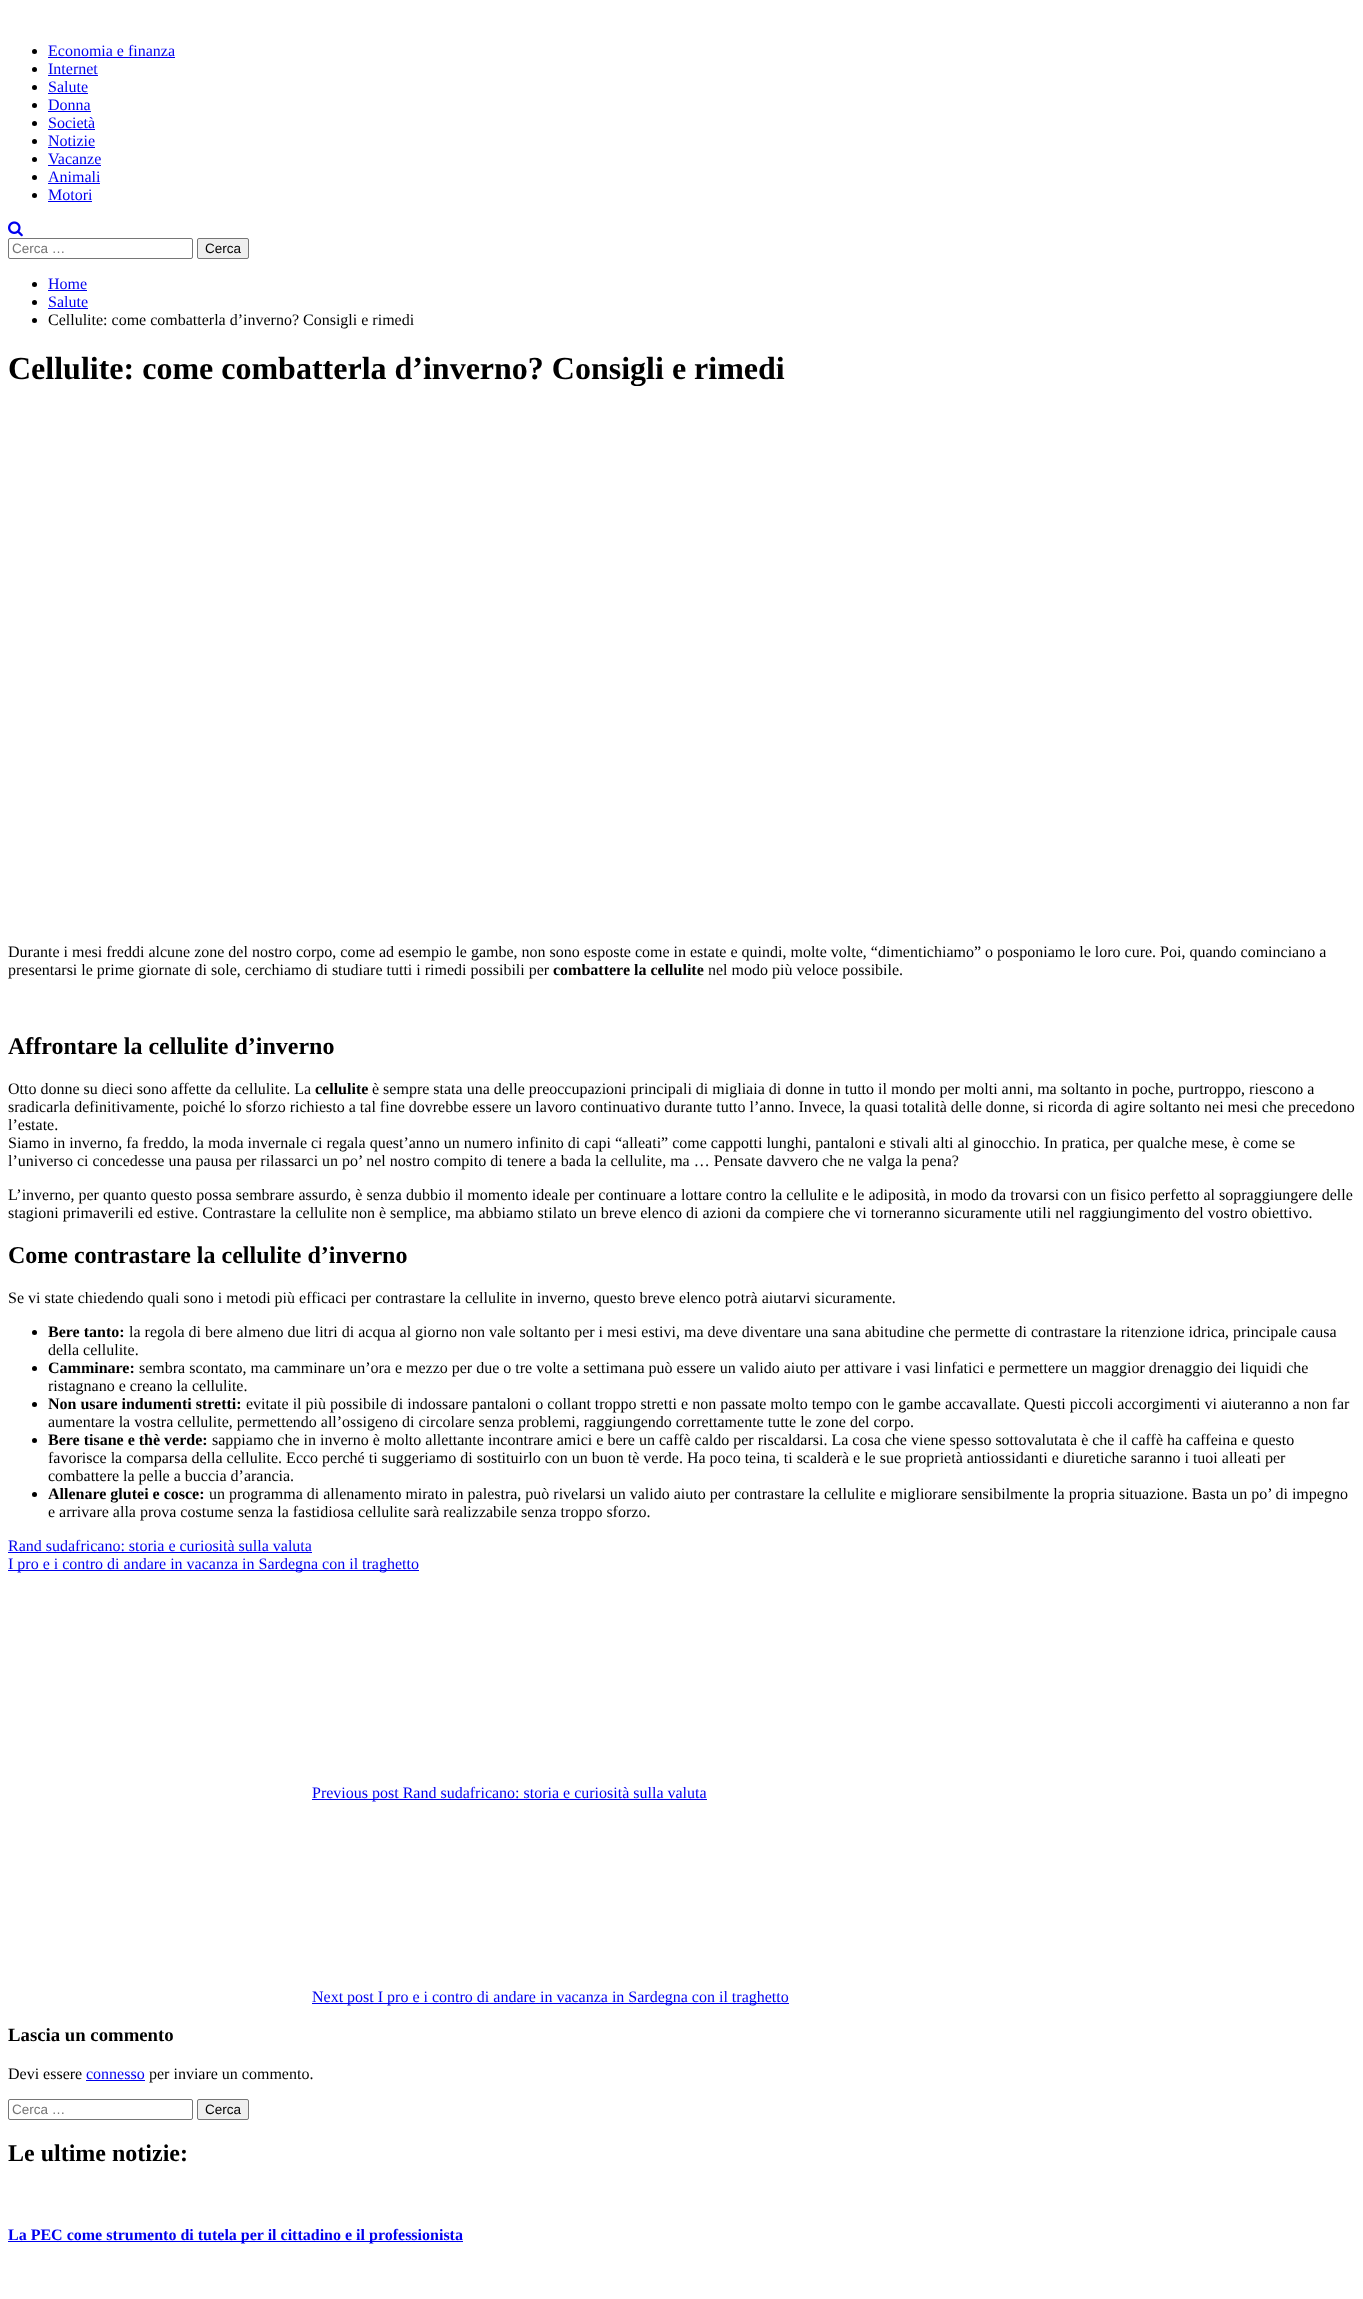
<svg xmlns="http://www.w3.org/2000/svg" width="1363" height="2299" viewBox="0 0 1363 2299">
  <rect width="100%" height="100%" fill="#fff"/>
  <circle cx="34.5" cy="51.5" r="2.5" fill="#000"/>
  <path d="M48 57h127v1H48z" fill="#00e"/>
  <circle cx="34.5" cy="69.5" r="2.5" fill="#000"/>
  <path d="M48 75h50v1H48z" fill="#00e"/>
  <circle cx="34.5" cy="87.5" r="2.5" fill="#000"/>
  <path d="M48 93h40v1H48z" fill="#00e"/>
  <circle cx="34.5" cy="105.5" r="2.5" fill="#000"/>
  <path d="M48 111h43v1H48z" fill="#00e"/>
  <circle cx="34.5" cy="123.5" r="2.5" fill="#000"/>
  <path d="M48 129h47v1H48z" fill="#00e"/>
  <circle cx="34.5" cy="141.5" r="2.5" fill="#000"/>
  <path d="M48 147h47v1H48z" fill="#00e"/>
  <circle cx="34.5" cy="159.5" r="2.5" fill="#000"/>
  <path d="M48 165h53v1H48z" fill="#00e"/>
  <circle cx="34.5" cy="177.5" r="2.5" fill="#000"/>
  <path d="M48 183h52v1H48z" fill="#00e"/>
  <circle cx="34.5" cy="195.5" r="2.5" fill="#000"/>
  <path d="M48 201h44v1H48z" fill="#00e"/>
  <image x="8" y="221" width="15" height="16" href="img/1.png"/>
  <rect x="8.5" y="238.5" width="184" height="20" rx="1.5" fill="none" stroke="#767676"/>
  <rect x="197.5" y="238.5" width="51" height="20" rx="1.5" fill="#efefef" stroke="#767676"/>
  <circle cx="34.5" cy="284.5" r="2.5" fill="#000"/>
  <path d="M48 290h39v1H48z" fill="#00e"/>
  <circle cx="34.5" cy="302.5" r="2.5" fill="#000"/>
  <path d="M48 308h40v1H48z" fill="#00e"/>
  <circle cx="34.5" cy="320.5" r="2.5" fill="#000"/>
  <circle cx="34.5" cy="1332.5" r="2.5" fill="#000"/>
  <circle cx="34.5" cy="1368.5" r="2.5" fill="#000"/>
  <circle cx="34.5" cy="1404.5" r="2.5" fill="#000"/>
  <circle cx="34.5" cy="1440.5" r="2.5" fill="#000"/>
  <circle cx="34.5" cy="1494.5" r="2.5" fill="#000"/>
  <path d="M8 1552h304v1H8z" fill="#00e"/>
  <path d="M8 1570h411v1H8z" fill="#00e"/>
  <path d="M312 1799h395v1H312z" fill="#00e"/>
  <path d="M312 2003h477v1H312z" fill="#00e"/>
  <path d="M86 2080h59v1H86z" fill="#00e"/>
  <rect x="8.5" y="2099.5" width="184" height="20" rx="1.5" fill="none" stroke="#767676"/>
  <rect x="197.5" y="2099.5" width="51" height="20" rx="1.5" fill="#efefef" stroke="#767676"/>
  <path d="M8 2241h455v1H8z" fill="#00e"/>
  <g font-family="Liberation Serif" font-size="16" fill="#00e">
    <text x="48" y="56">Economia e finanza</text>
    <text x="48" y="74">Internet</text>
    <text x="48" y="92">Salute</text>
    <text x="48" y="110">Donna</text>
    <text x="48" y="128">Società</text>
    <text x="48" y="146">Notizie</text>
    <text x="48" y="164">Vacanze</text>
    <text x="48" y="182">Animali</text>
    <text x="48" y="200">Motori</text>
  </g>
  <text x="12" y="253" font-family="Liberation Sans" font-size="13.5" fill="#757575">Cerca …</text>
  <text x="205" y="253" font-family="Liberation Sans" font-size="13.5" fill="#000">Cerca</text>
  <g font-family="Liberation Serif" font-size="16" fill="#00e">
    <text x="48" y="289">Home</text>
    <text x="48" y="307">Salute</text>
  </g>
  <text x="48" y="325" font-family="Liberation Serif" font-size="16" fill="#000">Cellulite: come combatterla d’inverno? Consigli e rimedi</text>
  <text x="8" y="379" font-family="Liberation Serif" font-size="32" font-weight="bold" fill="#000">Cellulite: come combatterla d’inverno? Consigli e rimedi</text>
  <g font-family="Liberation Serif" font-size="16" fill="#000">
    <text x="8" y="957">Durante i mesi freddi alcune zone del nostro corpo, come ad esempio le gambe, non sono esposte come in estate e quindi, molte volte, “dimentichiamo” o posponiamo le loro cure. Poi, quando cominciano a</text>
    <text x="8" y="975">presentarsi le prime giornate di sole, cerchiamo di studiare tutti i rimedi possibili per</text>
  </g>
  <text x="553" y="975" font-family="Liberation Serif" font-size="16" font-weight="bold" fill="#000">combattere la cellulite</text>
  <text x="708" y="975" font-family="Liberation Serif" font-size="16" fill="#000">nel modo più veloce possibile.</text>
  <text x="8" y="1054" font-family="Liberation Serif" font-size="24" font-weight="bold" fill="#000">Affrontare la cellulite d’inverno</text>
  <text x="8" y="1094" font-family="Liberation Serif" font-size="16" fill="#000">Otto donne su dieci sono affette da cellulite. La</text>
  <text x="315" y="1094" font-family="Liberation Serif" font-size="16" font-weight="bold" fill="#000">cellulite</text>
  <g font-family="Liberation Serif" font-size="16" fill="#000">
    <text x="372" y="1094">è sempre stata una delle preoccupazioni principali di migliaia di donne in tutto il mondo per molti anni, ma soltanto in poche, purtroppo, riescono a</text>
    <text x="8" y="1112">sradicarla definitivamente, poiché lo sforzo richiesto a tal fine dovrebbe essere un lavoro continuativo durante tutto l’anno. Invece, la quasi totalità delle donne, si ricorda di agire soltanto nei mesi che precedono</text>
    <text x="8" y="1130">l’estate.</text>
    <text x="8" y="1148">Siamo in inverno, fa freddo, la moda invernale ci regala quest’anno un numero infinito di capi “alleati” come cappotti lunghi, pantaloni e stivali alti al ginocchio. In pratica, per qualche mese, è come se</text>
    <text x="8" y="1166">l’universo ci concedesse una pausa per rilassarci un po’ nel nostro compito di tenere a bada la cellulite, ma … Pensate davvero che ne valga la pena?</text>
    <text x="8" y="1200">L’inverno, per quanto questo possa sembrare assurdo, è senza dubbio il momento ideale per continuare a lottare contro la cellulite e le adiposità, in modo da trovarsi con un fisico perfetto al sopraggiungere delle</text>
    <text x="8" y="1218">stagioni primaverili ed estive. Contrastare la cellulite non è semplice, ma abbiamo stilato un breve elenco di azioni da compiere che vi torneranno sicuramente utili nel raggiungimento del vostro obiettivo.</text>
  </g>
  <text x="8" y="1263" font-family="Liberation Serif" font-size="24" font-weight="bold" fill="#000">Come contrastare la cellulite d’inverno</text>
  <text x="8" y="1303" font-family="Liberation Serif" font-size="16" fill="#000">Se vi state chiedendo quali sono i metodi più efficaci per contrastare la cellulite in inverno, questo breve elenco potrà aiutarvi sicuramente.</text>
  <text x="48" y="1337" font-family="Liberation Serif" font-size="16" font-weight="bold" fill="#000">Bere tanto:</text>
  <g font-family="Liberation Serif" font-size="16" fill="#000">
    <text x="129" y="1337">la regola di bere almeno due litri di acqua al giorno non vale soltanto per i mesi estivi, ma deve diventare una sana abitudine che permette di contrastare la ritenzione idrica, principale causa</text>
    <text x="48" y="1355">della cellulite.</text>
  </g>
  <text x="48" y="1373" font-family="Liberation Serif" font-size="16" font-weight="bold" fill="#000">Camminare:</text>
  <g font-family="Liberation Serif" font-size="16" fill="#000">
    <text x="139" y="1373">sembra scontato, ma camminare un’ora e mezzo per due o tre volte a settimana può essere un valido aiuto per attivare i vasi linfatici e permettere un maggior drenaggio dei liquidi che</text>
    <text x="48" y="1391">ristagnano e creano la cellulite.</text>
  </g>
  <text x="48" y="1409" font-family="Liberation Serif" font-size="16" font-weight="bold" fill="#000">Non usare indumenti stretti:</text>
  <g font-family="Liberation Serif" font-size="16" fill="#000">
    <text x="246" y="1409">evitate il più possibile di indossare pantaloni o collant troppo stretti e non passate molto tempo con le gambe accavallate. Questi piccoli accorgimenti vi aiuteranno a non far</text>
    <text x="48" y="1427">aumentare la vostra cellulite, permettendo all’ossigeno di circolare senza problemi, raggiungendo correttamente tutte le zone del corpo.</text>
  </g>
  <text x="48" y="1445" font-family="Liberation Serif" font-size="16" font-weight="bold" fill="#000">Bere tisane e thè verde:</text>
  <g font-family="Liberation Serif" font-size="16" fill="#000">
    <text x="212" y="1445">sappiamo che in inverno è molto allettante incontrare amici e bere un caffè caldo per riscaldarsi. La cosa che viene spesso sottovalutata è che il caffè ha caffeina e questo</text>
    <text x="48" y="1463">favorisce la comparsa della cellulite. Ecco perché ti suggeriamo di sostituirlo con un buon tè verde. Ha poco teina, ti scalderà e le sue proprietà antiossidanti e diuretiche saranno i tuoi alleati per</text>
    <text x="48" y="1481">combattere la pelle a buccia d’arancia.</text>
  </g>
  <text x="48" y="1499" font-family="Liberation Serif" font-size="16" font-weight="bold" fill="#000">Allenare glutei e cosce:</text>
  <g font-family="Liberation Serif" font-size="16" fill="#000">
    <text x="209" y="1499">un programma di allenamento mirato in palestra, può rivelarsi un valido aiuto per contrastare la cellulite e migliorare sensibilmente la propria situazione. Basta un po’ di impegno</text>
    <text x="48" y="1517">e arrivare alla prova costume senza la fastidiosa cellulite sarà realizzabile senza troppo sforzo.</text>
  </g>
  <g font-family="Liberation Serif" font-size="16" fill="#00e">
    <text x="8" y="1551">Rand sudafricano: storia e curiosità sulla valuta</text>
    <text x="8" y="1569">I pro e i contro di andare in vacanza in Sardegna con il traghetto</text>
    <text x="312" y="1798">Previous post Rand sudafricano: storia e curiosità sulla valuta</text>
    <text x="312" y="2002">Next post I pro e i contro di andare in vacanza in Sardegna con il traghetto</text>
  </g>
  <text x="8" y="2041" font-family="Liberation Serif" font-size="18.75" font-weight="bold" fill="#000">Lascia un commento</text>
  <text x="8" y="2079" font-family="Liberation Serif" font-size="16" fill="#000">Devi essere</text>
  <text x="86" y="2079" font-family="Liberation Serif" font-size="16" fill="#00e">connesso</text>
  <text x="149" y="2079" font-family="Liberation Serif" font-size="16" fill="#000">per inviare un commento.</text>
  <text x="12" y="2114" font-family="Liberation Sans" font-size="13.5" fill="#757575">Cerca …</text>
  <text x="205" y="2114" font-family="Liberation Sans" font-size="13.5" fill="#000">Cerca</text>
  <text x="8" y="2161" font-family="Liberation Serif" font-size="24" font-weight="bold" fill="#000">Le ultime notizie:</text>
  <text x="8" y="2240" font-family="Liberation Serif" font-size="16" font-weight="bold" fill="#00e">La PEC come strumento di tutela per il cittadino e il professionista</text>
</svg>
